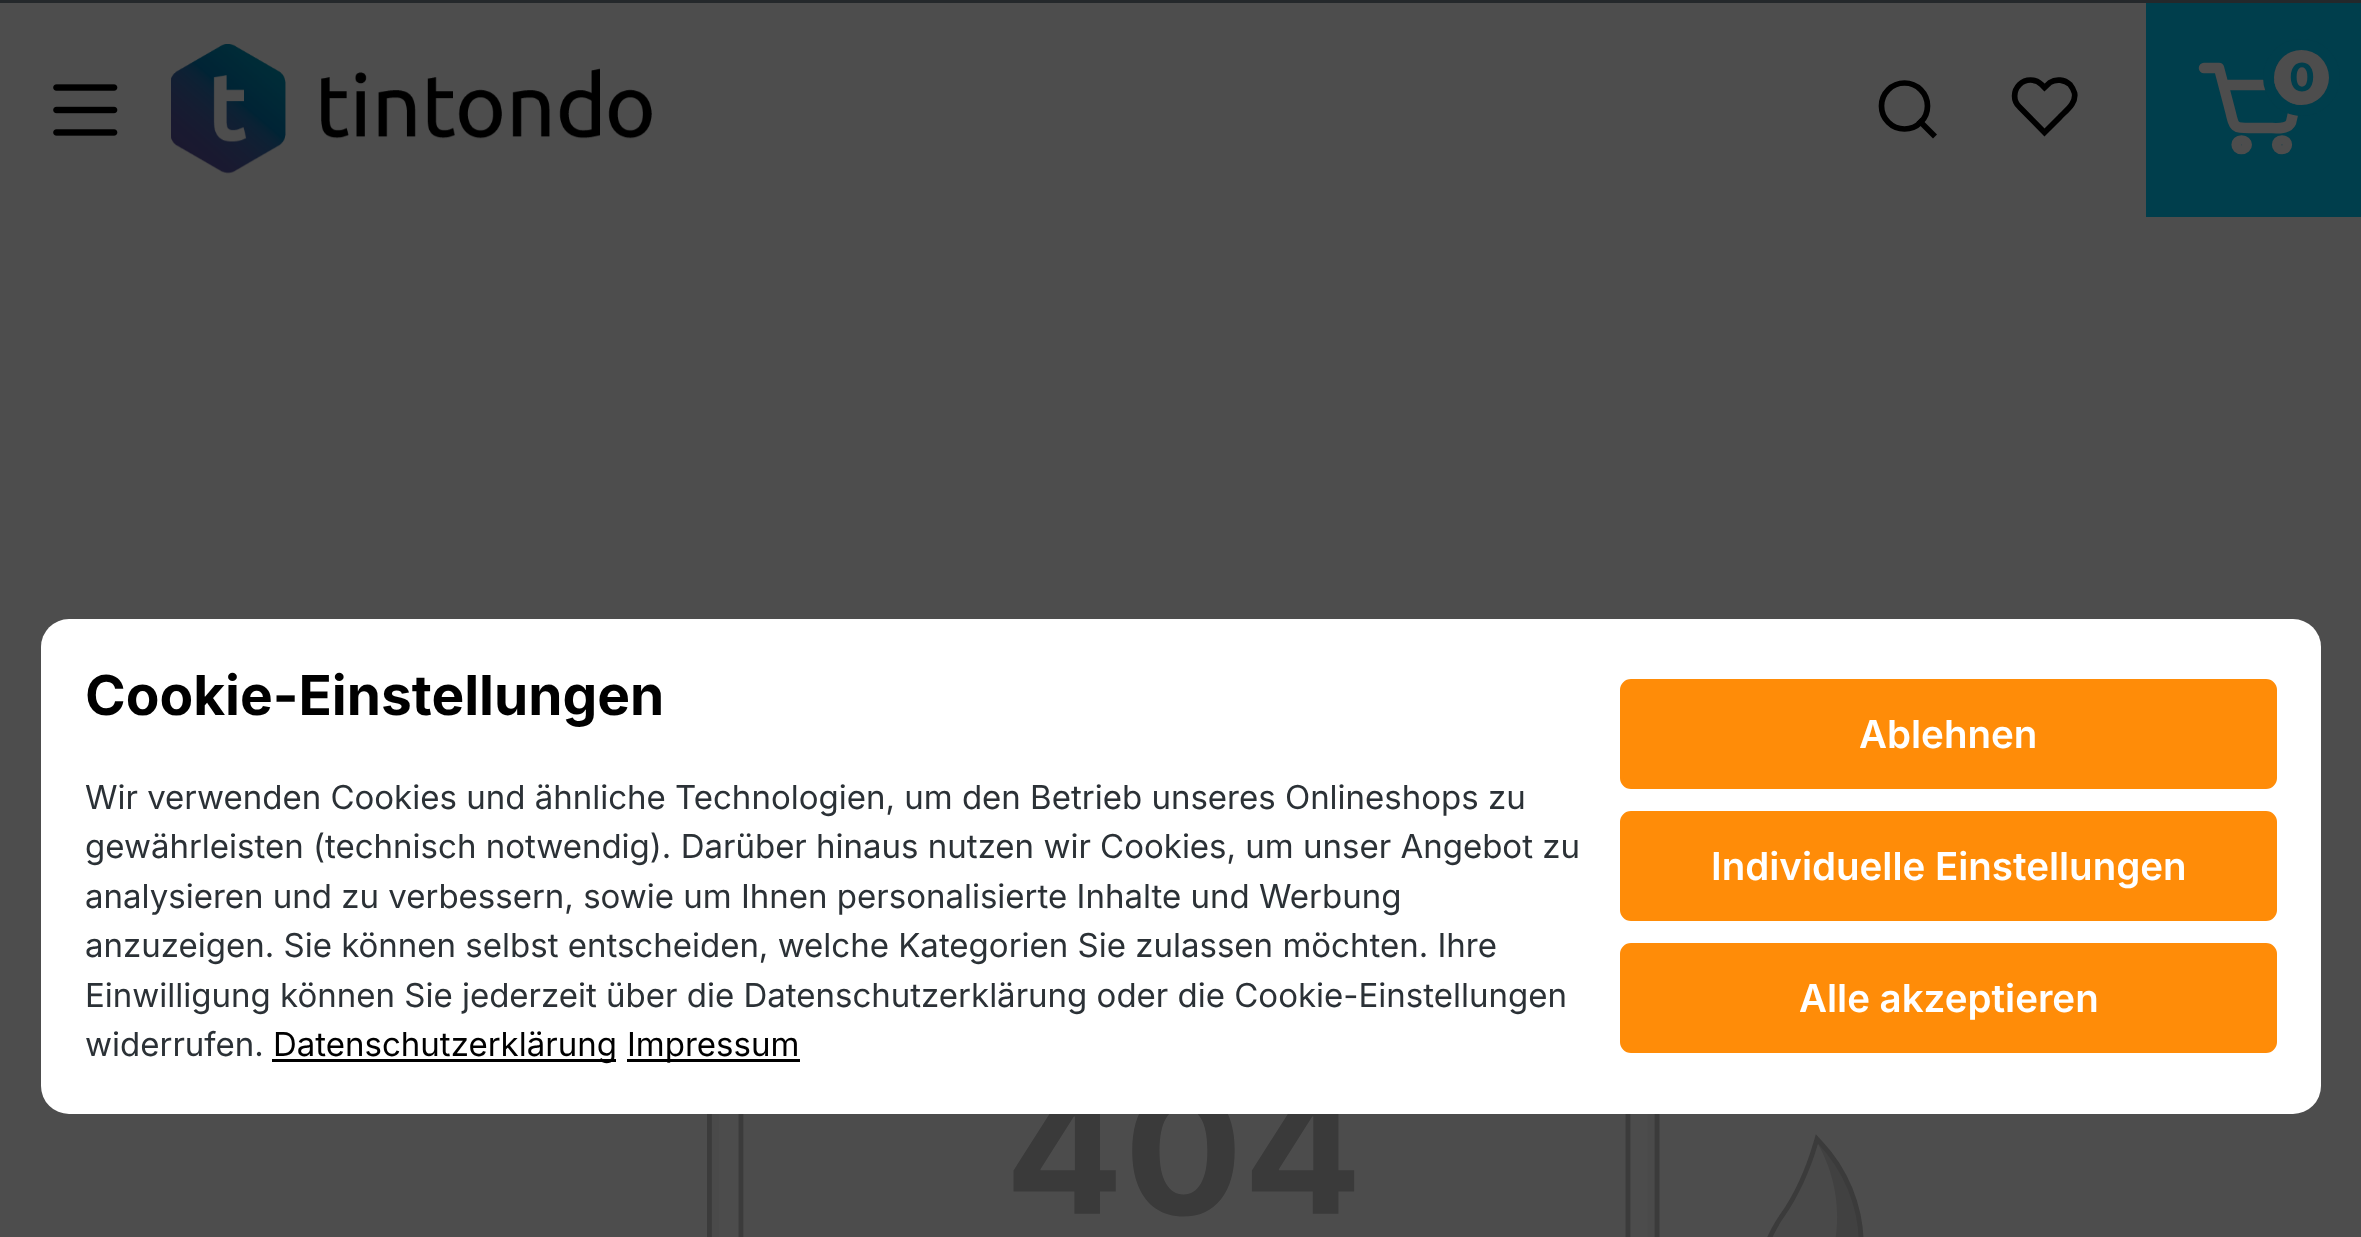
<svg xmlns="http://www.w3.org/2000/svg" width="2361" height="1237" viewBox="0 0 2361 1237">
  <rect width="100%" height="100%" fill="#4d4d4d"/>
  <image x="53" y="84" width="65" height="52" href="img/1.png"/>
  <image x="171" y="44" width="481" height="130" href="img/2.png"/>
  <circle cx="1904.5" cy="106" r="23" fill="none" stroke="#000" stroke-width="5.7"/>
  <path d="M1933 134.5L1920.5 122" fill="none" stroke="#000" stroke-width="5.7" stroke-linecap="square"/>
  <path d="M2070 84.5C2064.5 79.5 2056 78.5 2050 82.5L2044.5 87.5L2041.5 84.5C2035.5 78.5 2025.5 78.5 2019.5 84.5C2013 91 2013 101 2019.5 107L2044.5 132.5L2059.5 117.5C2066 110.5 2076.5 103.5 2074.5 93C2073.5 89.5 2072 87 2070 84.5Z" fill="none" stroke="#000" stroke-width="5.7" stroke-linecap="square"/>
  <path d="M2146 3h215v214H2146z" fill="#003e4c"/>
  <path d="M2204 68H2219L2230.5 112C2234 127 2234 128 2249 128H2268.5C2275 128 2287.5 130 2291 122.5L2299.5 85H2227" fill="none" stroke="#4d4d4d" stroke-width="10.5" stroke-linecap="round" stroke-linejoin="round"/>
  <circle cx="2301.5" cy="77.5" r="33" fill="none" stroke="#003e4c" stroke-width="11"/>
  <circle cx="2301.5" cy="77.5" r="27.5" fill="#4d4d4d"/>
  <path d="M2241.5 149C2248.5 149 2248.5 140.5 2241.5 140.5C2235 140.5 2235 149 2241.5 149ZM2282 149C2288.5 149 2288.5 140.5 2282 140.5C2275.5 140.5 2275.5 149 2282 149Z" fill="none" stroke="#4d4d4d" stroke-width="10.5" stroke-linecap="round" stroke-linejoin="round"/>
  <path d="M0 0h2361v3H0z" fill="#24282b"/>
  <rect x="41" y="619" width="2280" height="495" rx="28" fill="#fff"/>
  <path d="M272 1059h344v3H272z" fill="#000"/>
  <path d="M627 1059h173v3H627z" fill="#000"/>
  <rect x="1621.5" y="680.5" width="654" height="107" rx="9.5" fill="#ff8c08" stroke="#ff8c08" stroke-width="3"/>
  <rect x="1621.5" y="812.5" width="654" height="107" rx="9.5" fill="#ff8c08" stroke="#ff8c08" stroke-width="3"/>
  <rect x="1621.5" y="944.5" width="654" height="107" rx="9.5" fill="#ff8c08" stroke="#ff8c08" stroke-width="3"/>
  <image x="707" y="1114" width="1157" height="123" href="img/3.png"/>
  <text x="2289" y="91" font-family="Inter" font-size="38.5" font-weight="bold" fill="#003e4c">0</text>
  <text x="85" y="715" font-family="Inter" font-size="55" font-weight="bold" fill="#000">Cookie-Einstellungen</text>
  <g font-family="Inter" font-size="33" fill="#2b3136">
    <text x="85" y="809">Wir verwenden Cookies und ähnliche Technologien, um den Betrieb unseres Onlineshops zu</text>
    <text x="85" y="858">gewährleisten (technisch notwendig). Darüber hinaus nutzen wir Cookies, um unser Angebot zu</text>
    <text x="85" y="908">analysieren und zu verbessern, sowie um Ihnen personalisierte Inhalte und Werbung</text>
    <text x="85" y="957">anzuzeigen. Sie können selbst entscheiden, welche Kategorien Sie zulassen möchten. Ihre</text>
    <text x="85" y="1007">Einwilligung können Sie jederzeit über die Datenschutzerklärung oder die Cookie-Einstellungen</text>
    <text x="85" y="1056">widerrufen.</text>
  </g>
  <g font-family="Inter" font-size="33" fill="#000">
    <text x="273" y="1056">Datenschutzerklärung</text>
    <text x="627" y="1056">Impressum</text>
  </g>
  <g font-family="Inter" font-size="38.5" font-weight="600" fill="#fff">
    <text x="1859" y="748">Ablehnen</text>
    <text x="1711" y="880">Individuelle Einstellungen</text>
    <text x="1799" y="1012">Alle akzeptieren</text>
  </g>
</svg>
